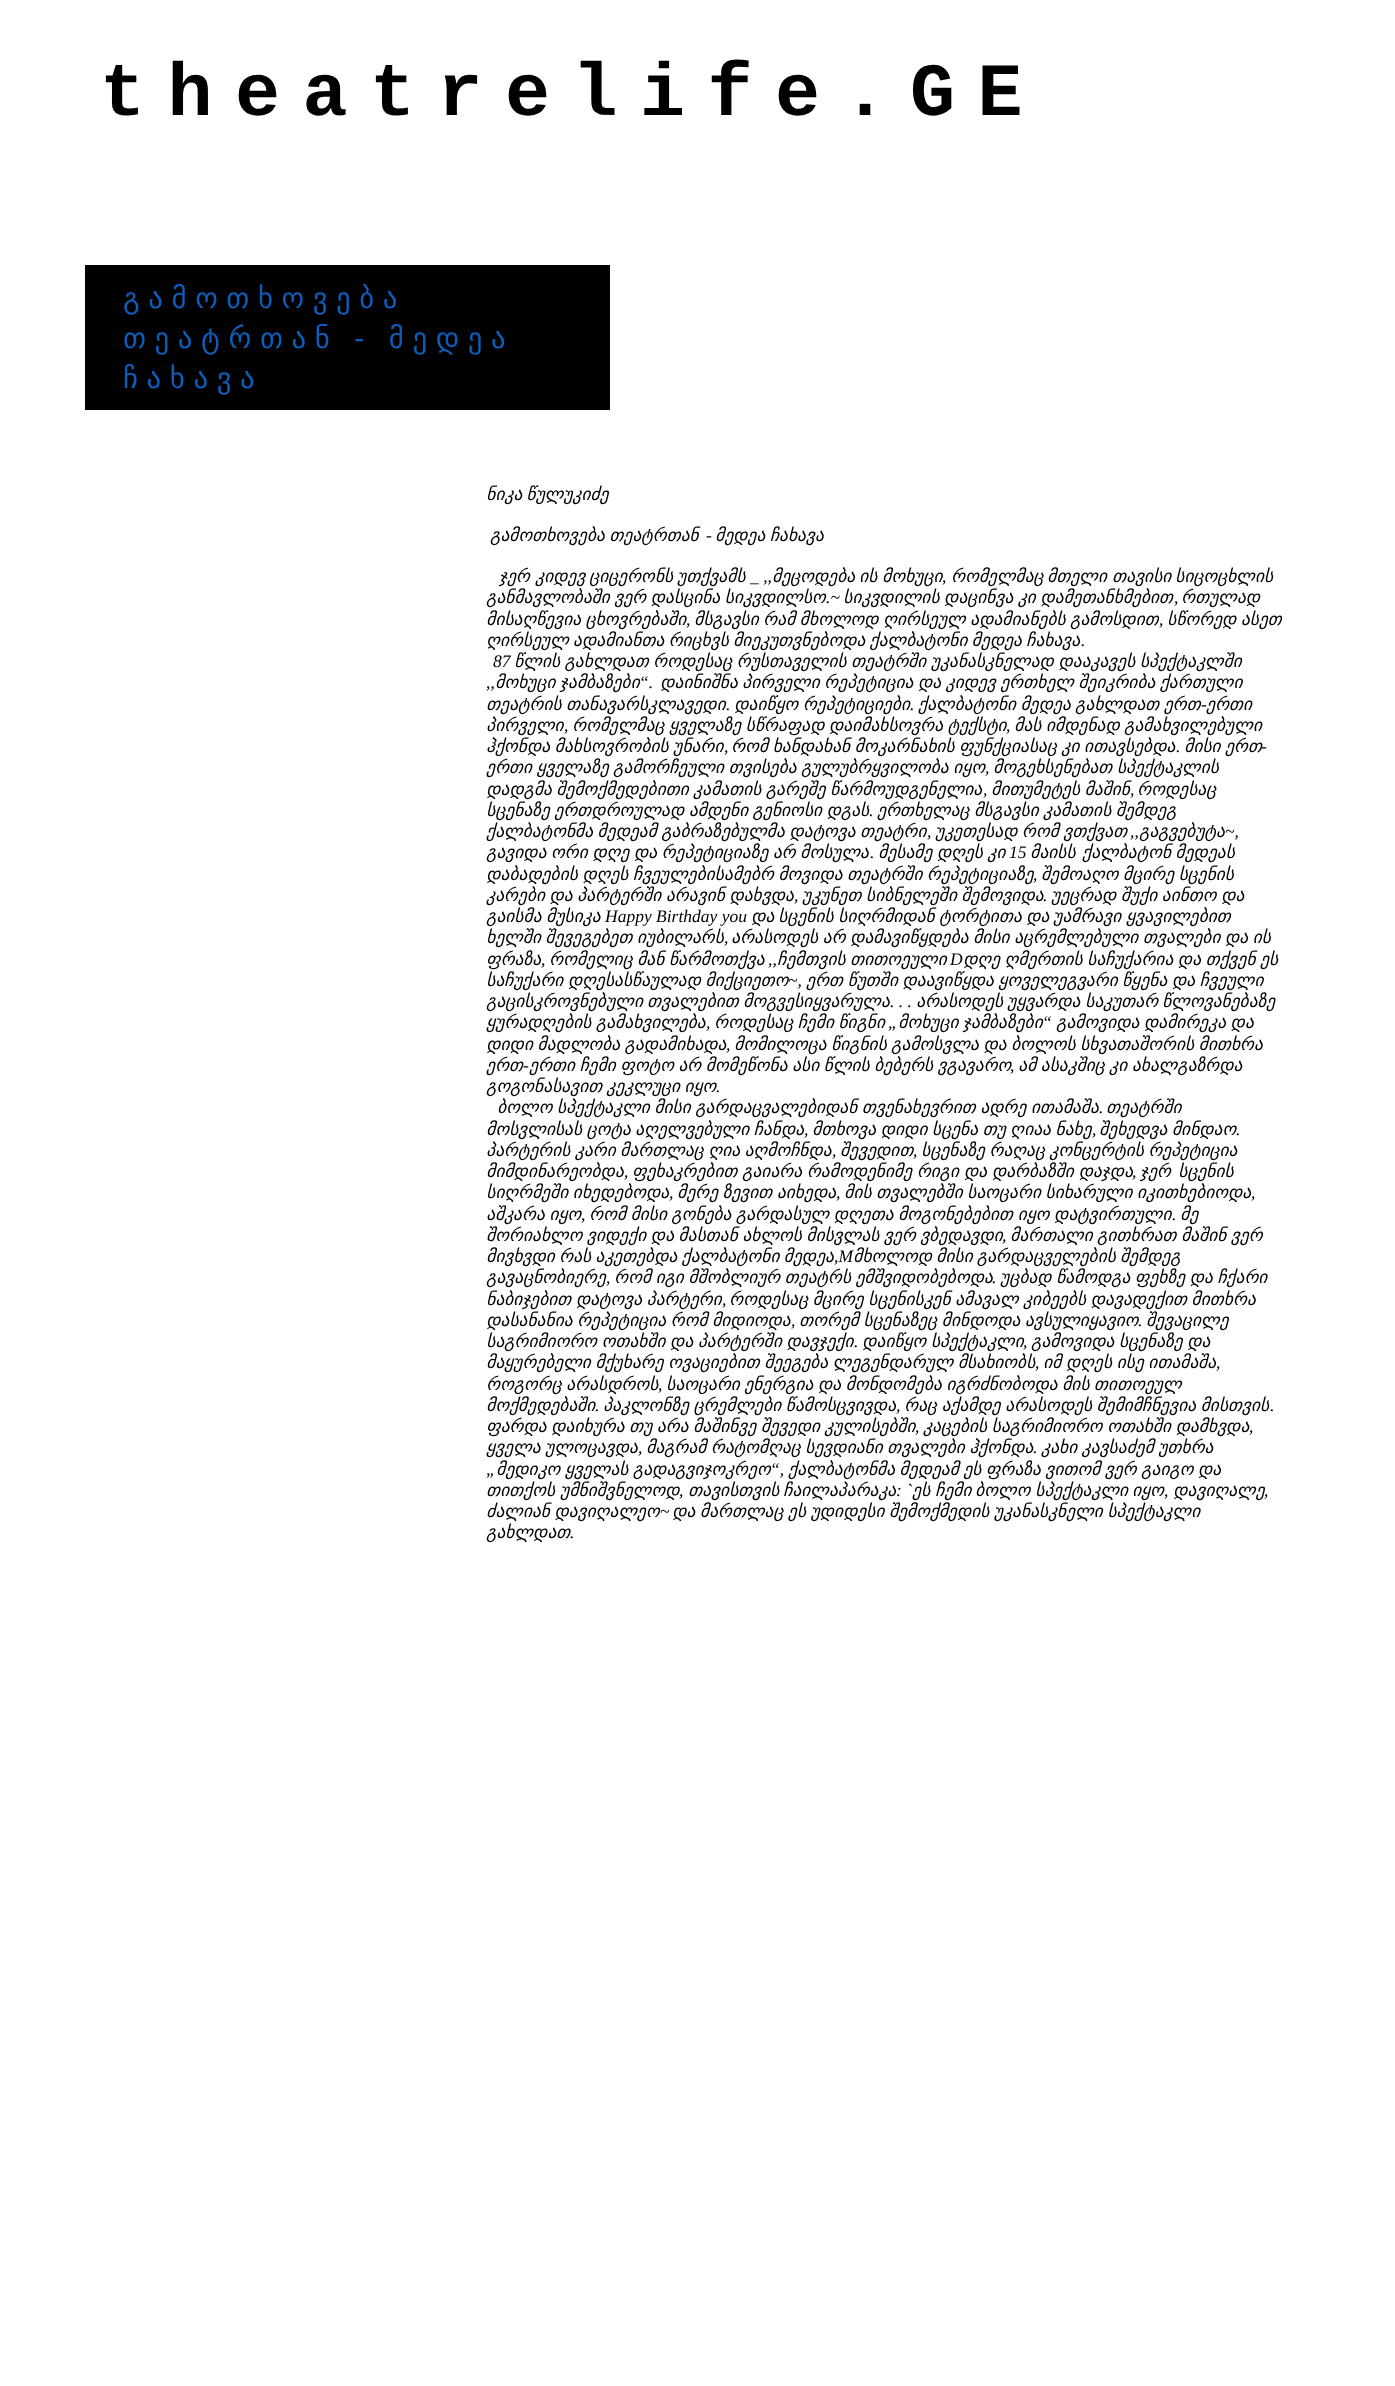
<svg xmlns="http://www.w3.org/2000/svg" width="1395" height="2386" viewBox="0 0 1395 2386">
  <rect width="100%" height="100%" fill="#fff"/>
  <path d="M85 265h525v145H85z" fill="#000"/>
  <text x="100" y="115" font-family="Liberation Mono" font-size="75" font-weight="bold" letter-spacing="22.5" fill="#000">theatrelife.GE</text>
  <g font-family="DejaVu Sans" font-size="28.75" letter-spacing="8.6" fill="#0d5eba">
    <text x="123" y="308">გამოთხოვება</text>
    <text x="123" y="348" word-spacing="-2">თეატრთან - მედეა</text>
    <text x="123" y="388">ჩახავა</text>
  </g>
  <g font-family="DejaVu Sans" font-size="17.5" font-style="italic" fill="#000">
    <text x="486" y="500" word-spacing="-1.25">ნიკა წულუკიძე</text>
    <text x="490" y="541" word-spacing="-1">გამოთხოვება თეატრთან</text>
  </g>
  <text x="706" y="541" font-family="Liberation Serif" font-size="17.5" font-style="italic" fill="#000">-</text>
  <g font-family="DejaVu Sans" font-size="17.5" font-style="italic" fill="#000">
    <text x="715" y="541" word-spacing="-1">მედეა ჩახავა</text>
    <text x="499" y="582">ჯერ</text>
    <text x="535" y="582">კიდევ</text>
    <text x="589" y="582">ციცერონს</text>
    <text x="677" y="582">უთქვამს</text>
  </g>
  <text x="750" y="582" font-family="Liberation Serif" font-size="17.5" font-style="italic" fill="#000">_ ,,</text>
  <g font-family="DejaVu Sans" font-size="17.5" font-style="italic" fill="#000">
    <text x="772" y="582">მეცოდება</text>
    <text x="859" y="582">ის</text>
    <text x="882" y="582">მოხუცი</text>
  </g>
  <text x="942" y="582" font-family="Liberation Serif" font-size="17.5" font-style="italic" fill="#000">,</text>
  <g font-family="DejaVu Sans" font-size="17.5" font-style="italic" fill="#000">
    <text x="951" y="582">რომელმაც</text>
    <text x="1047" y="582">მთელი</text>
    <text x="1112" y="582">თავისი</text>
    <text x="1175" y="582">სიცოცხლის</text>
    <text x="486" y="603" word-spacing="-1">განმავლობაში ვერ დასცინა სიკვდილსო</text>
  </g>
  <text x="826" y="603" font-family="Liberation Serif" font-size="17.5" font-style="italic" fill="#000">.~</text>
  <text x="843" y="603" word-spacing="-1" font-family="DejaVu Sans" font-size="17.5" font-style="italic" fill="#000">სიკვდილის დაცინვა კი დამეთანხმებით</text>
  <text x="1174" y="603" font-family="Liberation Serif" font-size="17.5" font-style="italic" fill="#000">,</text>
  <g font-family="DejaVu Sans" font-size="17.5" font-style="italic" fill="#000">
    <text x="1181" y="603">რთულად</text>
    <text x="486" y="625" word-spacing="-1">მისაღწევია ცხოვრებაში</text>
  </g>
  <text x="686" y="625" font-family="Liberation Serif" font-size="17.5" font-style="italic" fill="#000">,</text>
  <text x="694" y="625" word-spacing="-1" font-family="DejaVu Sans" font-size="17.5" font-style="italic" fill="#000">მსგავსი რამ მხოლოდ ღირსეულ ადამიანებს გამოსდით</text>
  <text x="1159" y="625" font-family="Liberation Serif" font-size="17.5" font-style="italic" fill="#000">,</text>
  <g font-family="DejaVu Sans" font-size="17.5" font-style="italic" fill="#000">
    <text x="1167" y="625" word-spacing="-1">სწორედ ასეთ</text>
    <text x="486" y="646" word-spacing="-1.25">ღირსეულ ადამიანთა რიცხვს მიეკუთვნებოდა ქალბატონი მედეა ჩახავა</text>
  </g>
  <g font-family="Liberation Serif" font-size="17.5" font-style="italic" fill="#000">
    <text x="1081" y="646">.</text>
    <text x="493" y="667">87</text>
  </g>
  <text x="514" y="667" word-spacing="-1" font-family="DejaVu Sans" font-size="17.5" font-style="italic" fill="#000">წლის გახლდათ როდესაც რუსთაველის თეატრში უკანასკნელად დააკავეს სპექტაკლში</text>
  <text x="486" y="688" font-family="Liberation Serif" font-size="17.5" font-style="italic" fill="#000">,,</text>
  <text x="495" y="688" word-spacing="-1" font-family="DejaVu Sans" font-size="17.5" font-style="italic" fill="#000">მოხუცი ჯამბაზები</text>
  <text x="639" y="688" font-family="Liberation Serif" font-size="17.5" font-style="italic" fill="#000">“.</text>
  <g font-family="DejaVu Sans" font-size="17.5" font-style="italic" fill="#000">
    <text x="660" y="688" word-spacing="-1">დაინიშნა პირველი რეპეტიცია და კიდევ ერთხელ შეიკრიბა ქართული</text>
    <text x="486" y="710" word-spacing="-1">თეატრის თანავარსკლავედი</text>
    <text x="734" y="710" word-spacing="-1">დაიწყო რეპეტიციები</text>
    <text x="918" y="710" word-spacing="-1">ქალბატონი მედეა გახლდათ ერთ</text>
  </g>
  <text x="1201" y="710" font-family="Liberation Serif" font-size="17.5" font-style="italic" fill="#000">-</text>
  <text x="1206" y="710" font-family="DejaVu Sans" font-size="17.5" font-style="italic" fill="#000">ერთი</text>
  <g font-family="Liberation Serif" font-size="17.5" font-style="italic" fill="#000">
    <text x="726" y="710">.</text>
    <text x="910" y="710">.</text>
  </g>
  <text x="486" y="731" font-family="DejaVu Sans" font-size="17.5" font-style="italic" fill="#000">პირველი</text>
  <text x="564" y="731" font-family="Liberation Serif" font-size="17.5" font-style="italic" fill="#000">,</text>
  <g font-family="DejaVu Sans" font-size="17.5" font-style="italic" fill="#000">
    <text x="572" y="731" word-spacing="-1">რომელმაც ყველაზე სწრაფად დაიმახსოვრა ტექსტი</text>
    <text x="1014" y="731" word-spacing="-1">მას იმდენად გამახვილებული</text>
  </g>
  <text x="1006" y="731" font-family="Liberation Serif" font-size="17.5" font-style="italic" fill="#000">,</text>
  <g font-family="DejaVu Sans" font-size="17.5" font-style="italic" fill="#000">
    <text x="486" y="752" word-spacing="-1">ჰქონდა მახსოვრობის უნარი</text>
    <text x="731" y="752" word-spacing="-1">რომ ხანდახან მოკარნახის ფუნქციასაც კი ითავსებდა</text>
    <text x="1184" y="752" word-spacing="-1">მისი ერთ</text>
  </g>
  <g font-family="Liberation Serif" font-size="17.5" font-style="italic" fill="#000">
    <text x="1261" y="752">-</text>
    <text x="724" y="752">,</text>
    <text x="1176" y="752">.</text>
  </g>
  <text x="486" y="773" word-spacing="-1" font-family="DejaVu Sans" font-size="17.5" font-style="italic" fill="#000">ერთი ყველაზე გამორჩეული თვისება გულუბრყვილობა იყო</text>
  <text x="985" y="773" font-family="Liberation Serif" font-size="17.5" font-style="italic" fill="#000">,</text>
  <g font-family="DejaVu Sans" font-size="17.5" font-style="italic" fill="#000">
    <text x="993" y="773" word-spacing="-1">მოგეხსენებათ სპექტაკლის</text>
    <text x="486" y="795" word-spacing="-1">დადგმა შემოქმედებითი კამათის გარეშე წარმოუდგენელია</text>
  </g>
  <text x="983" y="795" font-family="Liberation Serif" font-size="17.5" font-style="italic" fill="#000">,</text>
  <g font-family="DejaVu Sans" font-size="17.5" font-style="italic" fill="#000">
    <text x="991" y="795" word-spacing="-1">მითუმეტეს მაშინ</text>
    <text x="1137" y="795">როდესაც</text>
  </g>
  <text x="1130" y="795" font-family="Liberation Serif" font-size="17.5" font-style="italic" fill="#000">,</text>
  <text x="486" y="816" word-spacing="-1" font-family="DejaVu Sans" font-size="17.5" font-style="italic" fill="#000">სცენაზე ერთდროულად ამდენი გენიოსი დგას</text>
  <text x="869" y="816" font-family="Liberation Serif" font-size="17.5" font-style="italic" fill="#000">.</text>
  <g font-family="DejaVu Sans" font-size="17.5" font-style="italic" fill="#000">
    <text x="877" y="816" word-spacing="-1">ერთხელაც მსგავსი კამათის შემდეგ</text>
    <text x="486" y="837" word-spacing="-1">ქალბატონმა მედეამ გაბრაზებულმა დატოვა თეატრი</text>
  </g>
  <text x="927" y="837" font-family="Liberation Serif" font-size="17.5" font-style="italic" fill="#000">,</text>
  <text x="935" y="837" word-spacing="-1" font-family="DejaVu Sans" font-size="17.5" font-style="italic" fill="#000">უკეთესად რომ ვთქვათ</text>
  <text x="1130" y="837" font-family="Liberation Serif" font-size="17.5" font-style="italic" fill="#000">,,</text>
  <text x="1139" y="837" font-family="DejaVu Sans" font-size="17.5" font-style="italic" fill="#000">გაგვებუტა</text>
  <text x="1225" y="837" font-family="Liberation Serif" font-size="17.5" font-style="italic" fill="#000">~,</text>
  <text x="486" y="858" word-spacing="-1" font-family="DejaVu Sans" font-size="17.5" font-style="italic" fill="#000">გავიდა ორი დღე და რეპეტიციაზე არ მოსულა</text>
  <text x="870" y="858" font-family="Liberation Serif" font-size="17.5" font-style="italic" fill="#000">.</text>
  <text x="878" y="858" word-spacing="-1" font-family="DejaVu Sans" font-size="17.5" font-style="italic" fill="#000">მესამე დღეს კი</text>
  <text x="1009" y="858" font-family="Liberation Serif" font-size="17.5" font-style="italic" fill="#000">15</text>
  <g font-family="DejaVu Sans" font-size="17.5" font-style="italic" fill="#000">
    <text x="1030" y="858">მაისს</text>
    <text x="1082" y="858" word-spacing="-1">ქალბატონ მედეას</text>
    <text x="486" y="880" word-spacing="-1">დაბადების დღეს ჩვეულებისამებრ მოვიდა თეატრში რეპეტიციაზე</text>
  </g>
  <text x="1033" y="880" font-family="Liberation Serif" font-size="17.5" font-style="italic" fill="#000">,</text>
  <g font-family="DejaVu Sans" font-size="17.5" font-style="italic" fill="#000">
    <text x="1041" y="880" word-spacing="-1">შემოაღო მცირე სცენის</text>
    <text x="486" y="901" word-spacing="-1">კარები და პარტერში არავინ დახვდა</text>
  </g>
  <text x="794" y="901" font-family="Liberation Serif" font-size="17.5" font-style="italic" fill="#000">,</text>
  <text x="802" y="901" word-spacing="-1" font-family="DejaVu Sans" font-size="17.5" font-style="italic" fill="#000">უკუნეთ სიბნელეში შემოვიდა</text>
  <text x="1043" y="901" font-family="Liberation Serif" font-size="17.5" font-style="italic" fill="#000">.</text>
  <g font-family="DejaVu Sans" font-size="17.5" font-style="italic" fill="#000">
    <text x="1051" y="901" word-spacing="-1">უეცრად შუქი აინთო და</text>
    <text x="486" y="922">გაისმა</text>
    <text x="546" y="922">მუსიკა</text>
  </g>
  <text x="605" y="922" font-family="Liberation Serif" font-size="17.5" font-style="italic" fill="#000">Happy Birthday you</text>
  <g font-family="DejaVu Sans" font-size="17.5" font-style="italic" fill="#000">
    <text x="751" y="922">და</text>
    <text x="778" y="922">სცენის</text>
    <text x="838" y="922">სიღრმიდან</text>
    <text x="939" y="922">ტორტითა</text>
    <text x="1026" y="922">და</text>
    <text x="1053" y="922">უამრავი</text>
    <text x="1126" y="922">ყვავილებით</text>
    <text x="486" y="943" word-spacing="-1">ხელში შევეგებეთ იუბილარს</text>
  </g>
  <text x="724" y="943" font-family="Liberation Serif" font-size="17.5" font-style="italic" fill="#000">,</text>
  <g font-family="DejaVu Sans" font-size="17.5" font-style="italic" fill="#000">
    <text x="731" y="943" word-spacing="-1">არასოდეს არ დამავიწყდება მისი აცრემლებული თვალები და ის</text>
    <text x="486" y="965">ფრაზა</text>
  </g>
  <text x="541" y="965" font-family="Liberation Serif" font-size="17.5" font-style="italic" fill="#000">,</text>
  <text x="549" y="965" word-spacing="-1" font-family="DejaVu Sans" font-size="17.5" font-style="italic" fill="#000">რომელიც მან წარმოთქვა</text>
  <text x="768" y="965" font-family="Liberation Serif" font-size="17.5" font-style="italic" fill="#000">,,</text>
  <text x="777" y="965" word-spacing="-1" font-family="DejaVu Sans" font-size="17.5" font-style="italic" fill="#000">ჩემთვის თითოეული</text>
  <text x="950" y="965" font-family="Liberation Serif" font-size="17.5" font-style="italic" fill="#000">D</text>
  <g font-family="DejaVu Sans" font-size="17.5" font-style="italic" fill="#000">
    <text x="963" y="965" word-spacing="-1">დღე ღმერთის საჩუქარია და თქვენ ეს</text>
    <text x="486" y="986" word-spacing="-1">საჩუქარი დღესასწაულად მიქციეთო</text>
  </g>
  <text x="788" y="986" font-family="Liberation Serif" font-size="17.5" font-style="italic" fill="#000">~,</text>
  <g font-family="DejaVu Sans" font-size="17.5" font-style="italic" fill="#000">
    <text x="806" y="986" word-spacing="-1">ერთ წუთში დაავიწყდა ყოველეგვარი წყენა და ჩვეული</text>
    <text x="486" y="1007">გაცისკროვნებული</text>
    <text x="647" y="1007">თვალებით</text>
    <text x="743" y="1007">მოგვესიყვარულა</text>
  </g>
  <text x="890" y="1007" font-family="Liberation Serif" font-size="17.5" font-style="italic" fill="#000">. . .</text>
  <g font-family="DejaVu Sans" font-size="17.5" font-style="italic" fill="#000">
    <text x="916" y="1007">არასოდეს</text>
    <text x="1007" y="1007">უყვარდა</text>
    <text x="1085" y="1007">საკუთარ</text>
    <text x="1162" y="1007">წლოვანებაზე</text>
    <text x="486" y="1028" word-spacing="-1">ყურადღების გამახვილება</text>
    <text x="714" y="1028" word-spacing="-1">როდესაც ჩემი წიგნი</text>
    <text x="898" y="1028" word-spacing="-1">მოხუცი ჯამბაზები</text>
  </g>
  <text x="1042" y="1028" font-family="Liberation Serif" font-size="17.5" font-style="italic" fill="#000">“</text>
  <text x="1056" y="1028" word-spacing="-1" font-family="DejaVu Sans" font-size="17.5" font-style="italic" fill="#000">გამოვიდა დამირეკა და</text>
  <g font-family="Liberation Serif" font-size="17.5" font-style="italic" fill="#000">
    <text x="706" y="1028">,</text>
    <text x="888" y="1028">„</text>
  </g>
  <text x="486" y="1050" word-spacing="-1" font-family="DejaVu Sans" font-size="17.5" font-style="italic" fill="#000">დიდი მადლობა გადამიხადა</text>
  <text x="726" y="1050" font-family="Liberation Serif" font-size="17.5" font-style="italic" fill="#000">,</text>
  <g font-family="DejaVu Sans" font-size="17.5" font-style="italic" fill="#000">
    <text x="734" y="1050" word-spacing="-1">მომილოცა წიგნის გამოსვლა და ბოლოს სხვათაშორის მითხრა</text>
    <text x="486" y="1071">ერთ</text>
  </g>
  <text x="523" y="1071" font-family="Liberation Serif" font-size="17.5" font-style="italic" fill="#000">-</text>
  <g font-family="DejaVu Sans" font-size="17.5" font-style="italic" fill="#000">
    <text x="529" y="1071" word-spacing="-1">ერთი ჩემი ფოტო არ მომეწონა ასი წლის ბებერს ვგავარო</text>
    <text x="1018" y="1071" word-spacing="-1">ამ ასაკშიც კი ახალგაზრდა</text>
  </g>
  <text x="1010" y="1071" font-family="Liberation Serif" font-size="17.5" font-style="italic" fill="#000">,</text>
  <text x="486" y="1092" word-spacing="-1.25" font-family="DejaVu Sans" font-size="17.5" font-style="italic" fill="#000">გოგონასავით კეკლუცი იყო</text>
  <text x="716" y="1092" font-family="Liberation Serif" font-size="17.5" font-style="italic" fill="#000">.</text>
  <text x="497" y="1113" word-spacing="-1" font-family="DejaVu Sans" font-size="17.5" font-style="italic" fill="#000">ბოლო სპექტაკლი მისი გარდაცვალებიდან თვენახევრით ადრე ითამაშა</text>
  <text x="1099" y="1113" font-family="Liberation Serif" font-size="17.5" font-style="italic" fill="#000">.</text>
  <g font-family="DejaVu Sans" font-size="17.5" font-style="italic" fill="#000">
    <text x="1106" y="1113">თეატრში</text>
    <text x="486" y="1135" word-spacing="-1">მოსვლისას ცოტა აღელვებული ჩანდა</text>
  </g>
  <text x="804" y="1135" font-family="Liberation Serif" font-size="17.5" font-style="italic" fill="#000">,</text>
  <text x="812" y="1135" word-spacing="-1" font-family="DejaVu Sans" font-size="17.5" font-style="italic" fill="#000">მთხოვა დიდი სცენა თუ ღიაა ნახე</text>
  <text x="1092" y="1135" font-family="Liberation Serif" font-size="17.5" font-style="italic" fill="#000">,</text>
  <text x="1099" y="1135" word-spacing="-1" font-family="DejaVu Sans" font-size="17.5" font-style="italic" fill="#000">შეხედვა მინდაო</text>
  <text x="1236" y="1135" font-family="Liberation Serif" font-size="17.5" font-style="italic" fill="#000">.</text>
  <text x="486" y="1156" word-spacing="-1" font-family="DejaVu Sans" font-size="17.5" font-style="italic" fill="#000">პარტერის კარი მართლაც ღია აღმოჩნდა</text>
  <text x="832" y="1156" font-family="Liberation Serif" font-size="17.5" font-style="italic" fill="#000">,</text>
  <text x="840" y="1156" font-family="DejaVu Sans" font-size="17.5" font-style="italic" fill="#000">შევედით</text>
  <text x="913" y="1156" font-family="Liberation Serif" font-size="17.5" font-style="italic" fill="#000">,</text>
  <g font-family="DejaVu Sans" font-size="17.5" font-style="italic" fill="#000">
    <text x="921" y="1156" word-spacing="-1">სცენაზე რაღაც კონცერტის რეპეტიცია</text>
    <text x="486" y="1177">მიმდინარეობდა</text>
  </g>
  <text x="624" y="1177" font-family="Liberation Serif" font-size="17.5" font-style="italic" fill="#000">,</text>
  <text x="632" y="1177" word-spacing="-0.75" font-family="DejaVu Sans" font-size="17.5" font-style="italic" fill="#000">ფეხაკრებით გაიარა რამოდენიმე რიგი და დარბაზში დაჯდა</text>
  <text x="1132" y="1177" font-family="Liberation Serif" font-size="17.5" font-style="italic" fill="#000">,</text>
  <g font-family="DejaVu Sans" font-size="17.5" font-style="italic" fill="#000">
    <text x="1140" y="1177">ჯერ</text>
    <text x="1178" y="1177">სცენის</text>
    <text x="486" y="1198" word-spacing="-1">სიღრმეში იხედებოდა</text>
  </g>
  <text x="669" y="1198" font-family="Liberation Serif" font-size="17.5" font-style="italic" fill="#000">,</text>
  <text x="677" y="1198" word-spacing="-1" font-family="DejaVu Sans" font-size="17.5" font-style="italic" fill="#000">მერე ზევით აიხედა</text>
  <text x="836" y="1198" font-family="Liberation Serif" font-size="17.5" font-style="italic" fill="#000">,</text>
  <text x="844" y="1198" word-spacing="-1" font-family="DejaVu Sans" font-size="17.5" font-style="italic" fill="#000">მის თვალებში საოცარი სიხარული იკითხებიოდა</text>
  <text x="1251" y="1198" font-family="Liberation Serif" font-size="17.5" font-style="italic" fill="#000">,</text>
  <text x="486" y="1220" word-spacing="-1" font-family="DejaVu Sans" font-size="17.5" font-style="italic" fill="#000">აშკარა იყო</text>
  <text x="581" y="1220" font-family="Liberation Serif" font-size="17.5" font-style="italic" fill="#000">,</text>
  <text x="589" y="1220" word-spacing="-1" font-family="DejaVu Sans" font-size="17.5" font-style="italic" fill="#000">რომ მისი გონება გარდასულ დღეთა მოგონებებით იყო დატვირთული</text>
  <text x="1172" y="1220" font-family="Liberation Serif" font-size="17.5" font-style="italic" fill="#000">.</text>
  <g font-family="DejaVu Sans" font-size="17.5" font-style="italic" fill="#000">
    <text x="1180" y="1220">მე</text>
    <text x="486" y="1241" word-spacing="-1">შორიახლო ვიდექი და მასთან ახლოს მისვლას ვერ ვბედავდი</text>
  </g>
  <text x="1002" y="1241" font-family="Liberation Serif" font-size="17.5" font-style="italic" fill="#000">,</text>
  <g font-family="DejaVu Sans" font-size="17.5" font-style="italic" fill="#000">
    <text x="1010" y="1241" word-spacing="-1">მართალი გითხრათ მაშინ ვერ</text>
    <text x="486" y="1262" word-spacing="-1.25">მივხვდი რას აკეთებდა ქალბატონი მედეა</text>
  </g>
  <text x="834" y="1262" font-family="Liberation Serif" font-size="17.5" font-style="italic" fill="#000">,M</text>
  <g font-family="DejaVu Sans" font-size="17.5" font-style="italic" fill="#000">
    <text x="853" y="1262" word-spacing="-1.25">მხოლოდ მისი გარდაცველების შემდეგ</text>
    <text x="486" y="1283">გავაცნობიერე</text>
  </g>
  <text x="606" y="1283" font-family="Liberation Serif" font-size="17.5" font-style="italic" fill="#000">,</text>
  <text x="614" y="1283" word-spacing="-1" font-family="DejaVu Sans" font-size="17.5" font-style="italic" fill="#000">რომ იგი მშობლიურ თეატრს ემშვიდობებოდა</text>
  <text x="992" y="1283" font-family="Liberation Serif" font-size="17.5" font-style="italic" fill="#000">.</text>
  <g font-family="DejaVu Sans" font-size="17.5" font-style="italic" fill="#000">
    <text x="1000" y="1283" word-spacing="-1">უცბად წამოდგა ფეხზე და ჩქარი</text>
    <text x="486" y="1305" word-spacing="-1">ნაბიჯებით დატოვა პარტერი</text>
  </g>
  <text x="722" y="1305" font-family="Liberation Serif" font-size="17.5" font-style="italic" fill="#000">,</text>
  <g font-family="DejaVu Sans" font-size="17.5" font-style="italic" fill="#000">
    <text x="729" y="1305" word-spacing="-1">როდესაც მცირე სცენისკენ ამავალ კიბეებს დავადექით მითხრა</text>
    <text x="486" y="1326" word-spacing="-1">დასანანია რეპეტიცია რომ მიდიოდა</text>
  </g>
  <text x="791" y="1326" font-family="Liberation Serif" font-size="17.5" font-style="italic" fill="#000">,</text>
  <text x="799" y="1326" word-spacing="-1" font-family="DejaVu Sans" font-size="17.5" font-style="italic" fill="#000">თორემ სცენაზეც მინდოდა ავსულიყავიო</text>
  <text x="1138" y="1326" font-family="Liberation Serif" font-size="17.5" font-style="italic" fill="#000">.</text>
  <g font-family="DejaVu Sans" font-size="17.5" font-style="italic" fill="#000">
    <text x="1146" y="1326">შევაცილე</text>
    <text x="486" y="1347" word-spacing="-1">საგრიმიორო ოთახში და პარტერში დავჯექი</text>
  </g>
  <text x="854" y="1347" font-family="Liberation Serif" font-size="17.5" font-style="italic" fill="#000">.</text>
  <text x="862" y="1347" word-spacing="-1" font-family="DejaVu Sans" font-size="17.5" font-style="italic" fill="#000">დაიწყო სპექტაკლი</text>
  <text x="1023" y="1347" font-family="Liberation Serif" font-size="17.5" font-style="italic" fill="#000">,</text>
  <g font-family="DejaVu Sans" font-size="17.5" font-style="italic" fill="#000">
    <text x="1031" y="1347" word-spacing="-1">გამოვიდა სცენაზე და</text>
    <text x="486" y="1368" word-spacing="-1">მაყურებელი მქუხარე ოვაციებით შეეგება ლეგენდარულ მსახიობს</text>
  </g>
  <text x="1035" y="1368" font-family="Liberation Serif" font-size="17.5" font-style="italic" fill="#000">,</text>
  <text x="1043" y="1368" word-spacing="-1" font-family="DejaVu Sans" font-size="17.5" font-style="italic" fill="#000">იმ დღეს ისე ითამაშა</text>
  <text x="1216" y="1368" font-family="Liberation Serif" font-size="17.5" font-style="italic" fill="#000">,</text>
  <text x="486" y="1390" word-spacing="-1" font-family="DejaVu Sans" font-size="17.5" font-style="italic" fill="#000">როგორც არასდროს</text>
  <text x="658" y="1390" font-family="Liberation Serif" font-size="17.5" font-style="italic" fill="#000">,</text>
  <g font-family="DejaVu Sans" font-size="17.5" font-style="italic" fill="#000">
    <text x="666" y="1390" word-spacing="-1">საოცარი ენერგია და მონდომება იგრძნობოდა მის თითოეულ</text>
    <text x="486" y="1411">მოქმედებაში</text>
  </g>
  <text x="595" y="1411" font-family="Liberation Serif" font-size="17.5" font-style="italic" fill="#000">.</text>
  <text x="603" y="1411" word-spacing="-1" font-family="DejaVu Sans" font-size="17.5" font-style="italic" fill="#000">პაკლონზე ცრემლები წამოსცვივდა</text>
  <text x="896" y="1411" font-family="Liberation Serif" font-size="17.5" font-style="italic" fill="#000">,</text>
  <text x="904" y="1411" word-spacing="-1" font-family="DejaVu Sans" font-size="17.5" font-style="italic" fill="#000">რაც აქამდე არასოდეს შემიმჩნევია მისთვის</text>
  <text x="1270" y="1411" font-family="Liberation Serif" font-size="17.5" font-style="italic" fill="#000">.</text>
  <text x="486" y="1432" word-spacing="-1" font-family="DejaVu Sans" font-size="17.5" font-style="italic" fill="#000">ფარდა დაიხურა თუ არა მაშინვე შევედი კულისებში</text>
  <text x="915" y="1432" font-family="Liberation Serif" font-size="17.5" font-style="italic" fill="#000">,</text>
  <text x="923" y="1432" word-spacing="-1" font-family="DejaVu Sans" font-size="17.5" font-style="italic" fill="#000">კაცების საგრიმიორო ოთახში დამხვდა</text>
  <text x="1249" y="1432" font-family="Liberation Serif" font-size="17.5" font-style="italic" fill="#000">,</text>
  <text x="486" y="1453" word-spacing="-1" font-family="DejaVu Sans" font-size="17.5" font-style="italic" fill="#000">ყველა ულოცავდა</text>
  <text x="638" y="1453" font-family="Liberation Serif" font-size="17.5" font-style="italic" fill="#000">,</text>
  <text x="646" y="1453" word-spacing="-1" font-family="DejaVu Sans" font-size="17.5" font-style="italic" fill="#000">მაგრამ რატომღაც სევდიანი თვალები ჰქონდა</text>
  <text x="1033" y="1453" font-family="Liberation Serif" font-size="17.5" font-style="italic" fill="#000">.</text>
  <text x="1041" y="1453" word-spacing="-1" font-family="DejaVu Sans" font-size="17.5" font-style="italic" fill="#000">კახი კავსაძემ უთხრა</text>
  <text x="486" y="1475" font-family="Liberation Serif" font-size="17.5" font-style="italic" fill="#000">„</text>
  <text x="496" y="1475" word-spacing="-1" font-family="DejaVu Sans" font-size="17.5" font-style="italic" fill="#000">მედიკო ყველას გადაგვიჯოკრეო</text>
  <text x="770" y="1475" font-family="Liberation Serif" font-size="17.5" font-style="italic" fill="#000">“,</text>
  <g font-family="DejaVu Sans" font-size="17.5" font-style="italic" fill="#000">
    <text x="788" y="1475" word-spacing="-1">ქალბატონმა მედეამ ეს ფრაზა ვითომ ვერ გაიგო და</text>
    <text x="486" y="1496">თითქოს</text>
    <text x="560" y="1496">უმნიშვნელოდ</text>
  </g>
  <text x="679" y="1496" font-family="Liberation Serif" font-size="17.5" font-style="italic" fill="#000">,</text>
  <g font-family="DejaVu Sans" font-size="17.5" font-style="italic" fill="#000">
    <text x="688" y="1496">თავისთვის</text>
    <text x="783" y="1496">ჩაილაპარაკა</text>
  </g>
  <text x="896" y="1496" font-family="Liberation Serif" font-size="17.5" font-style="italic" fill="#000">: `</text>
  <g font-family="DejaVu Sans" font-size="17.5" font-style="italic" fill="#000">
    <text x="912" y="1496">ეს</text>
    <text x="935" y="1496">ჩემი</text>
    <text x="975" y="1496">ბოლო</text>
    <text x="1035" y="1496">სპექტაკლი</text>
    <text x="1132" y="1496">იყო</text>
  </g>
  <text x="1164" y="1496" font-family="Liberation Serif" font-size="17.5" font-style="italic" fill="#000">,</text>
  <text x="1173" y="1496" font-family="DejaVu Sans" font-size="17.5" font-style="italic" fill="#000">დავიღალე</text>
  <text x="1264" y="1496" font-family="Liberation Serif" font-size="17.5" font-style="italic" fill="#000">,</text>
  <text x="486" y="1517" word-spacing="-1" font-family="DejaVu Sans" font-size="17.5" font-style="italic" fill="#000">ძალიან დავიღალეო</text>
  <text x="660" y="1517" font-family="Liberation Serif" font-size="17.5" font-style="italic" fill="#000">~</text>
  <g font-family="DejaVu Sans" font-size="17.5" font-style="italic" fill="#000">
    <text x="672" y="1517" word-spacing="-1">და მართლაც ეს უდიდესი შემოქმედის უკანასკნელი სპექტაკლი</text>
    <text x="486" y="1538">გახლდათ</text>
  </g>
  <text x="570" y="1538" font-family="Liberation Serif" font-size="17.5" font-style="italic" fill="#000">.</text>
</svg>
